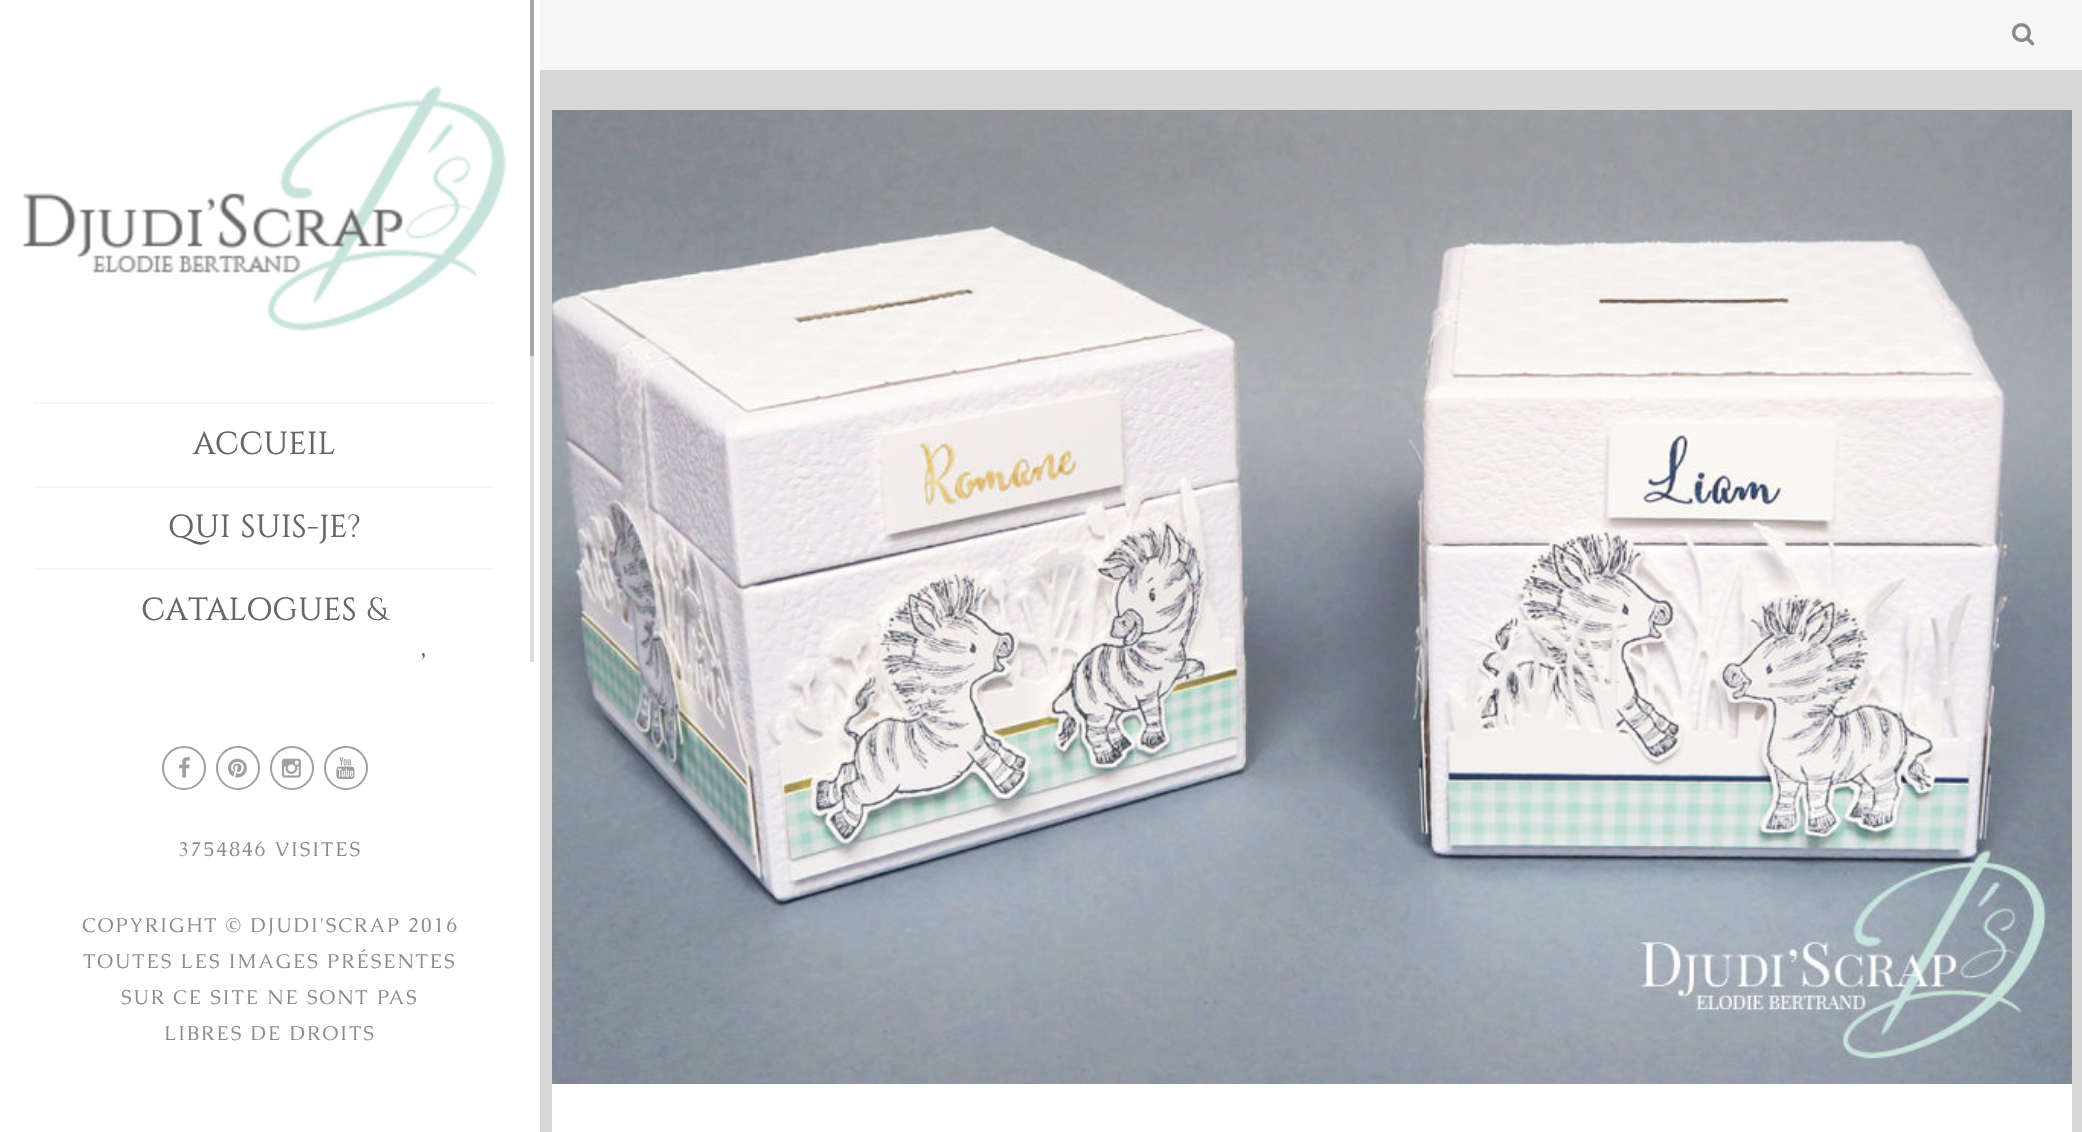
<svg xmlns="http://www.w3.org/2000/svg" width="2082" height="1132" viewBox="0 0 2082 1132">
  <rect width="100%" height="100%" fill="#d7d7d7"/>
  <path d="M0 0h540v1132H0z" fill="#fff"/>
  <image x="23" y="85" width="484" height="246" href="img/1.png"/>
  <path d="M34 402h460v2H34z" fill="#f6f6f6"/>
  <path d="M34 486h460v2H34z" fill="#f6f6f6"/>
  <path d="M34 568h460v2H34z" fill="#f6f6f6"/>
  <path d="M530 356h4v306H530z" fill="#ddd"/>
  <path d="M530 0h4v356H530z" fill="#a7a7a7"/>
  <circle cx="184" cy="768" r="21" fill="none" stroke="#a1a0a0" stroke-width="2"/>
  <image x="179" y="757" width="11" height="21" href="img/2.png"/>
  <circle cx="238" cy="768" r="21" fill="none" stroke="#a1a0a0" stroke-width="2"/>
  <image x="228" y="758" width="19" height="20" href="img/3.png"/>
  <circle cx="292" cy="768" r="21" fill="none" stroke="#a1a0a0" stroke-width="2"/>
  <image x="282" y="758" width="19" height="20" href="img/4.png"/>
  <circle cx="346" cy="768" r="21" fill="none" stroke="#a1a0a0" stroke-width="2"/>
  <image x="336" y="757" width="19" height="23" href="img/5.png"/>
  <path d="M540 0h1542v70H540z" fill="#f6f6f6"/>
  <image x="2012" y="23" width="23" height="23" href="img/6.png"/>
  <path d="M552 1084h1520v48H552z" fill="#fff"/>
  <image x="552" y="110" width="1520" height="974" href="img/7.png"/>
  <g font-family="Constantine" font-size="32" fill="#666">
    <text x="193" y="454">ACCUEIL</text>
    <text x="168" y="537" word-spacing="2">QUI SUIS-JE?</text>
    <text x="141" y="620" word-spacing="2">CATALOGUES &amp;</text>
    <text x="420" y="678" word-spacing="2">’</text>
  </g>
  <g font-family="Caudex" font-size="20" letter-spacing="2" fill="#8c8c8c">
    <text x="178" y="856">3754846 VISITES</text>
    <text x="82" y="932">COPYRIGHT © DJUDI'SCRAP 2016</text>
    <text x="83" y="968">TOUTES LES IMAGES PRÉSENTES</text>
    <text x="121" y="1004">SUR CE SITE NE SONT PAS</text>
    <text x="164" y="1040">LIBRES DE DROITS</text>
  </g>
</svg>
